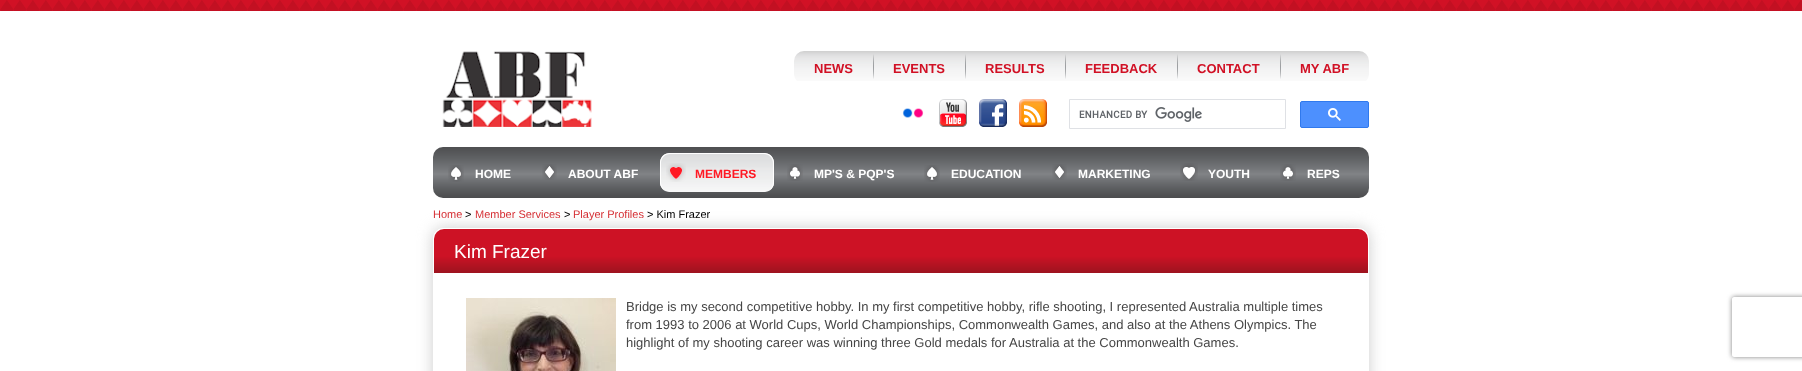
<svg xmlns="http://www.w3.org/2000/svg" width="1802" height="371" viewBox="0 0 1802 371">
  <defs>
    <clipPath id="clip1"><path d="M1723 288H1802V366H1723ZM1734 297H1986C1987 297 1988 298 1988 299V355C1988 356 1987 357 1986 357H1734C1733 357 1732 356 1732 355V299C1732 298 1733 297 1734 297Z" clip-rule="evenodd"/></clipPath>
  </defs>
  <rect width="100%" height="100%" fill="#fff"/>
  <image x="0" y="0" width="1802" height="11" href="img/1.png"/>
  <image x="442" y="51" width="150" height="76" href="img/2.png"/>
  <image x="794" y="51" width="575" height="30" href="img/3.png"/>
  <image x="873" y="54" width="1" height="25" href="img/4.png"/>
  <image x="965" y="54" width="1" height="25" href="img/4.png"/>
  <image x="1065" y="54" width="1" height="25" href="img/4.png"/>
  <image x="1177" y="54" width="1" height="25" href="img/4.png"/>
  <image x="1280" y="54" width="1" height="25" href="img/4.png"/>
  <image x="902" y="108" width="22" height="10" href="img/5.png"/>
  <image x="939" y="99" width="28" height="28" href="img/6.png"/>
  <image x="979" y="99" width="28" height="28" href="img/7.png"/>
  <image x="1019" y="99" width="28" height="28" href="img/8.png"/>
  <path d="M1069.5 99.5h216v29H1069.5z" fill="none" stroke="#dfe1e5"/>
  <image x="1079" y="107" width="123" height="15" href="img/9.png"/>
  <rect x="1300.5" y="101.5" width="68" height="26" rx="1.5" fill="#4d90fe" stroke="#3079ed"/>
  <image x="1328" y="108" width="13" height="13" href="img/10.png"/>
  <image x="433" y="147" width="936" height="51" href="img/11.png"/>
  <image x="448" y="165" width="16" height="17" href="img/12.png"/>
  <image x="542" y="164" width="15" height="16" href="img/13.png"/>
  <rect x="660" y="153" width="114" height="39" rx="10" fill="#fff"/>
  <image x="660" y="154" width="114" height="38" href="img/14.png"/>
  <path d="M670 153H764C770 153 774 157 774 163V182C774 188 770 192 764 192H670C664 192 660 188 660 182V163C660 157 664 153 670 153ZM670 154H764C769 154 773 158 773 163V182C773 188 769 192 764 192H670C665 192 661 188 661 182V163C661 158 665 154 670 154Z" fill="#fff" fill-rule="evenodd"/>
  <image x="666" y="163" width="20" height="19" href="img/15.png"/>
  <image x="787" y="164" width="16" height="17" href="img/16.png"/>
  <image x="924" y="165" width="16" height="17" href="img/12.png"/>
  <image x="1052" y="164" width="15" height="16" href="img/13.png"/>
  <image x="1180" y="163" width="18" height="18" href="img/17.png"/>
  <image x="1280" y="164" width="16" height="17" href="img/16.png"/>
  <rect x="433" y="228" width="936" height="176" rx="10" fill="#ccc" filter="blur(7.5px)"/>
  <path d="M443 228.5H1359C1364 228.5 1368.5 233 1368.5 238V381.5H433.5V238C433.5 233 438 228.5 443 228.5Z" fill="#fff" stroke="#fff"/>
  <image x="434" y="229" width="934" height="44" href="img/18.png"/>
  <image x="466" y="298" width="150" height="73" href="img/19.png"/>
  <g clip-path="url(#clip1)">
    <rect x="1732" y="297" width="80" height="60" rx="2" fill="#808080" filter="blur(2.5px)"/>
  </g>
  <g font-family="Liberation Sans" font-size="13" font-weight="bold" fill="#d11125">
    <text x="814" y="73">NEWS</text>
    <text x="893" y="73">EVENTS</text>
    <text x="985" y="73">RESULTS</text>
    <text x="1085" y="73">FEEDBACK</text>
    <text x="1197" y="73">CONTACT</text>
    <text x="1300" y="73">MY ABF</text>
  </g>
  <g font-family="Liberation Sans" font-size="12" font-weight="bold" fill="#fff">
    <text x="475" y="178">HOME</text>
    <text x="568" y="178">ABOUT ABF</text>
  </g>
  <text x="695" y="178" font-family="Liberation Sans" font-size="12" font-weight="bold" fill="#ff1924">MEMBERS</text>
  <g font-family="Liberation Sans" font-size="12" font-weight="bold" fill="#fff">
    <text x="814" y="178">MP'S &amp; PQP'S</text>
    <text x="951" y="178">EDUCATION</text>
    <text x="1078" y="178">MARKETING</text>
    <text x="1208" y="178">YOUTH</text>
    <text x="1307" y="178">REPS</text>
  </g>
  <text x="433" y="218" font-family="Liberation Sans" font-size="11" fill="#d52f34">Home</text>
  <text x="465" y="218" font-family="Liberation Sans" font-size="11" fill="#000">&gt;</text>
  <text x="475" y="218" font-family="Liberation Sans" font-size="11" fill="#d52f34">Member Services</text>
  <text x="564" y="218" font-family="Liberation Sans" font-size="11" fill="#000">&gt;</text>
  <text x="573" y="218" font-family="Liberation Sans" font-size="11" fill="#d52f34">Player Profiles</text>
  <text x="647" y="218" font-family="Liberation Sans" font-size="11" fill="#000">&gt; Kim Frazer</text>
  <text x="454" y="258" font-family="Liberation Sans" font-size="19" fill="#fff">Kim Frazer</text>
  <g font-family="Liberation Sans" font-size="13" fill="#454545">
    <text x="626" y="311">Bridge is my second competitive hobby. In my first competitive hobby, rifle shooting, I represented Australia multiple times</text>
    <text x="626" y="329">from 1993 to 2006 at World Cups, World Championships, Commonwealth Games, and also at the Athens Olympics. The</text>
    <text x="626" y="347">highlight of my shooting career was winning three Gold medals for Australia at the Commonwealth Games.</text>
  </g>
</svg>
